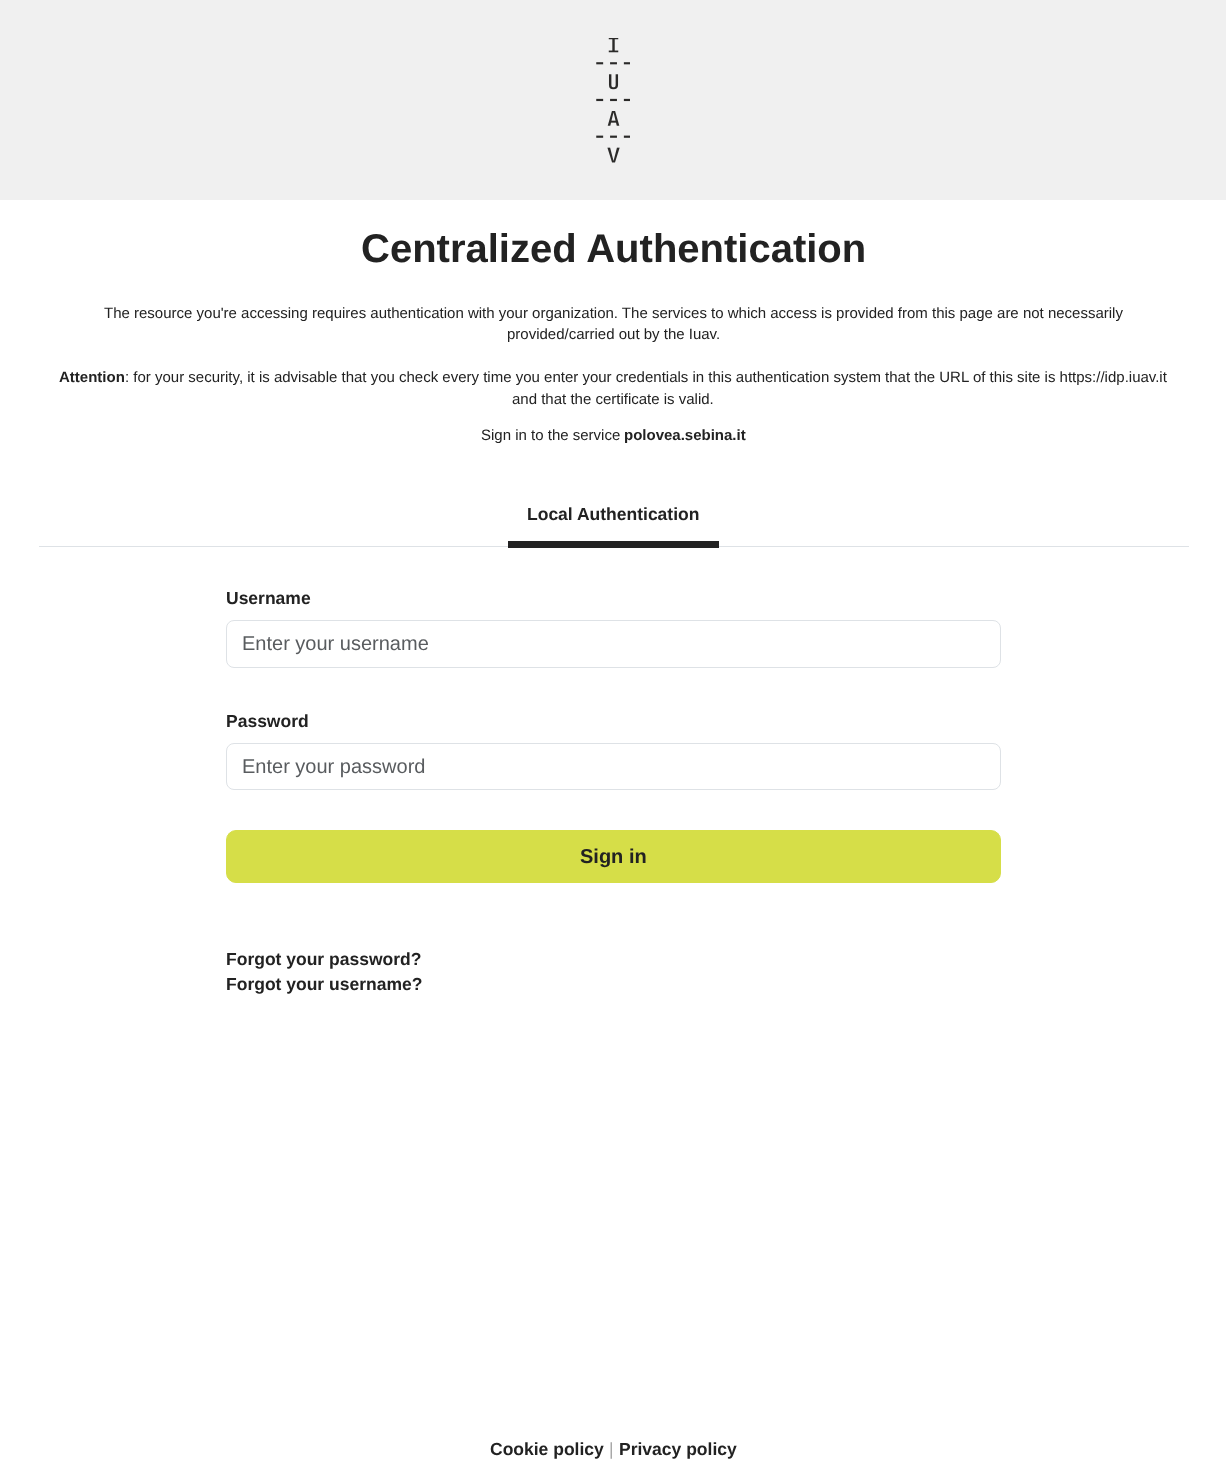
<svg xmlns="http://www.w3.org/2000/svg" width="1226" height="1481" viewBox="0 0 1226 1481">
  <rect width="100%" height="100%" fill="#fff"/>
  <path d="M0 0h1226v200H0z" fill="#f0f0f0"/>
  <image x="596" y="38" width="34" height="125" href="img/1.png"/>
  <path d="M39 546h1150v1H39z" fill="#dee2e6"/>
  <path d="M508 541h211v7H508z" fill="#222"/>
  <rect x="226.5" y="620.5" width="774" height="47" rx="7.5" fill="none" stroke="#dee2e6"/>
  <rect x="226.5" y="743.5" width="774" height="46" rx="7.5" fill="none" stroke="#dee2e6"/>
  <rect x="226.5" y="830.5" width="774" height="52" rx="9.5" fill="#d6de48" stroke="#d6de48"/>
  <text x="361" y="262" font-family="Liberation Sans" font-size="40" font-weight="bold" fill="#222">Centralized Authentication</text>
  <g font-family="Liberation Sans" font-size="15" fill="#222">
    <text x="104" y="318">The resource you're accessing requires authentication with your organization. The services to which access is provided from this page are not necessarily</text>
    <text x="507" y="339">provided/carried out by the Iuav.</text>
  </g>
  <text x="59" y="382" font-family="Liberation Sans" font-size="15" font-weight="bold" fill="#222">Attention</text>
  <g font-family="Liberation Sans" font-size="15" fill="#222">
    <text x="125" y="382">: for your security, it is advisable that you check every time you enter your credentials in this authentication system that the URL of this site is https://idp.iuav.it</text>
    <text x="512" y="404">and that the certificate is valid.</text>
    <text x="481" y="440">Sign in to the service</text>
  </g>
  <text x="624" y="440" font-family="Liberation Sans" font-size="15" font-weight="bold" fill="#222">polovea.sebina.it</text>
  <g font-family="Liberation Sans" font-size="17.5" font-weight="bold" fill="#222">
    <text x="527" y="520">Local Authentication</text>
    <text x="226" y="604">Username</text>
  </g>
  <text x="242" y="650" font-family="Liberation Sans" font-size="20" fill="#595c5f">Enter your username</text>
  <text x="226" y="727" font-family="Liberation Sans" font-size="17.5" font-weight="bold" fill="#222">Password</text>
  <text x="242" y="773" font-family="Liberation Sans" font-size="20" fill="#595c5f">Enter your password</text>
  <text x="580" y="863" font-family="Liberation Sans" font-size="20" font-weight="bold" fill="#222">Sign in</text>
  <g font-family="Liberation Sans" font-size="17.5" font-weight="bold" fill="#222">
    <text x="226" y="965">Forgot your password?</text>
    <text x="226" y="990">Forgot your username?</text>
    <text x="490" y="1455">Cookie policy</text>
  </g>
  <text x="609" y="1455" font-family="Liberation Sans" font-size="17.5" fill="#a7a7a7">|</text>
  <text x="619" y="1455" font-family="Liberation Sans" font-size="17.5" font-weight="bold" fill="#222">Privacy policy</text>
</svg>
